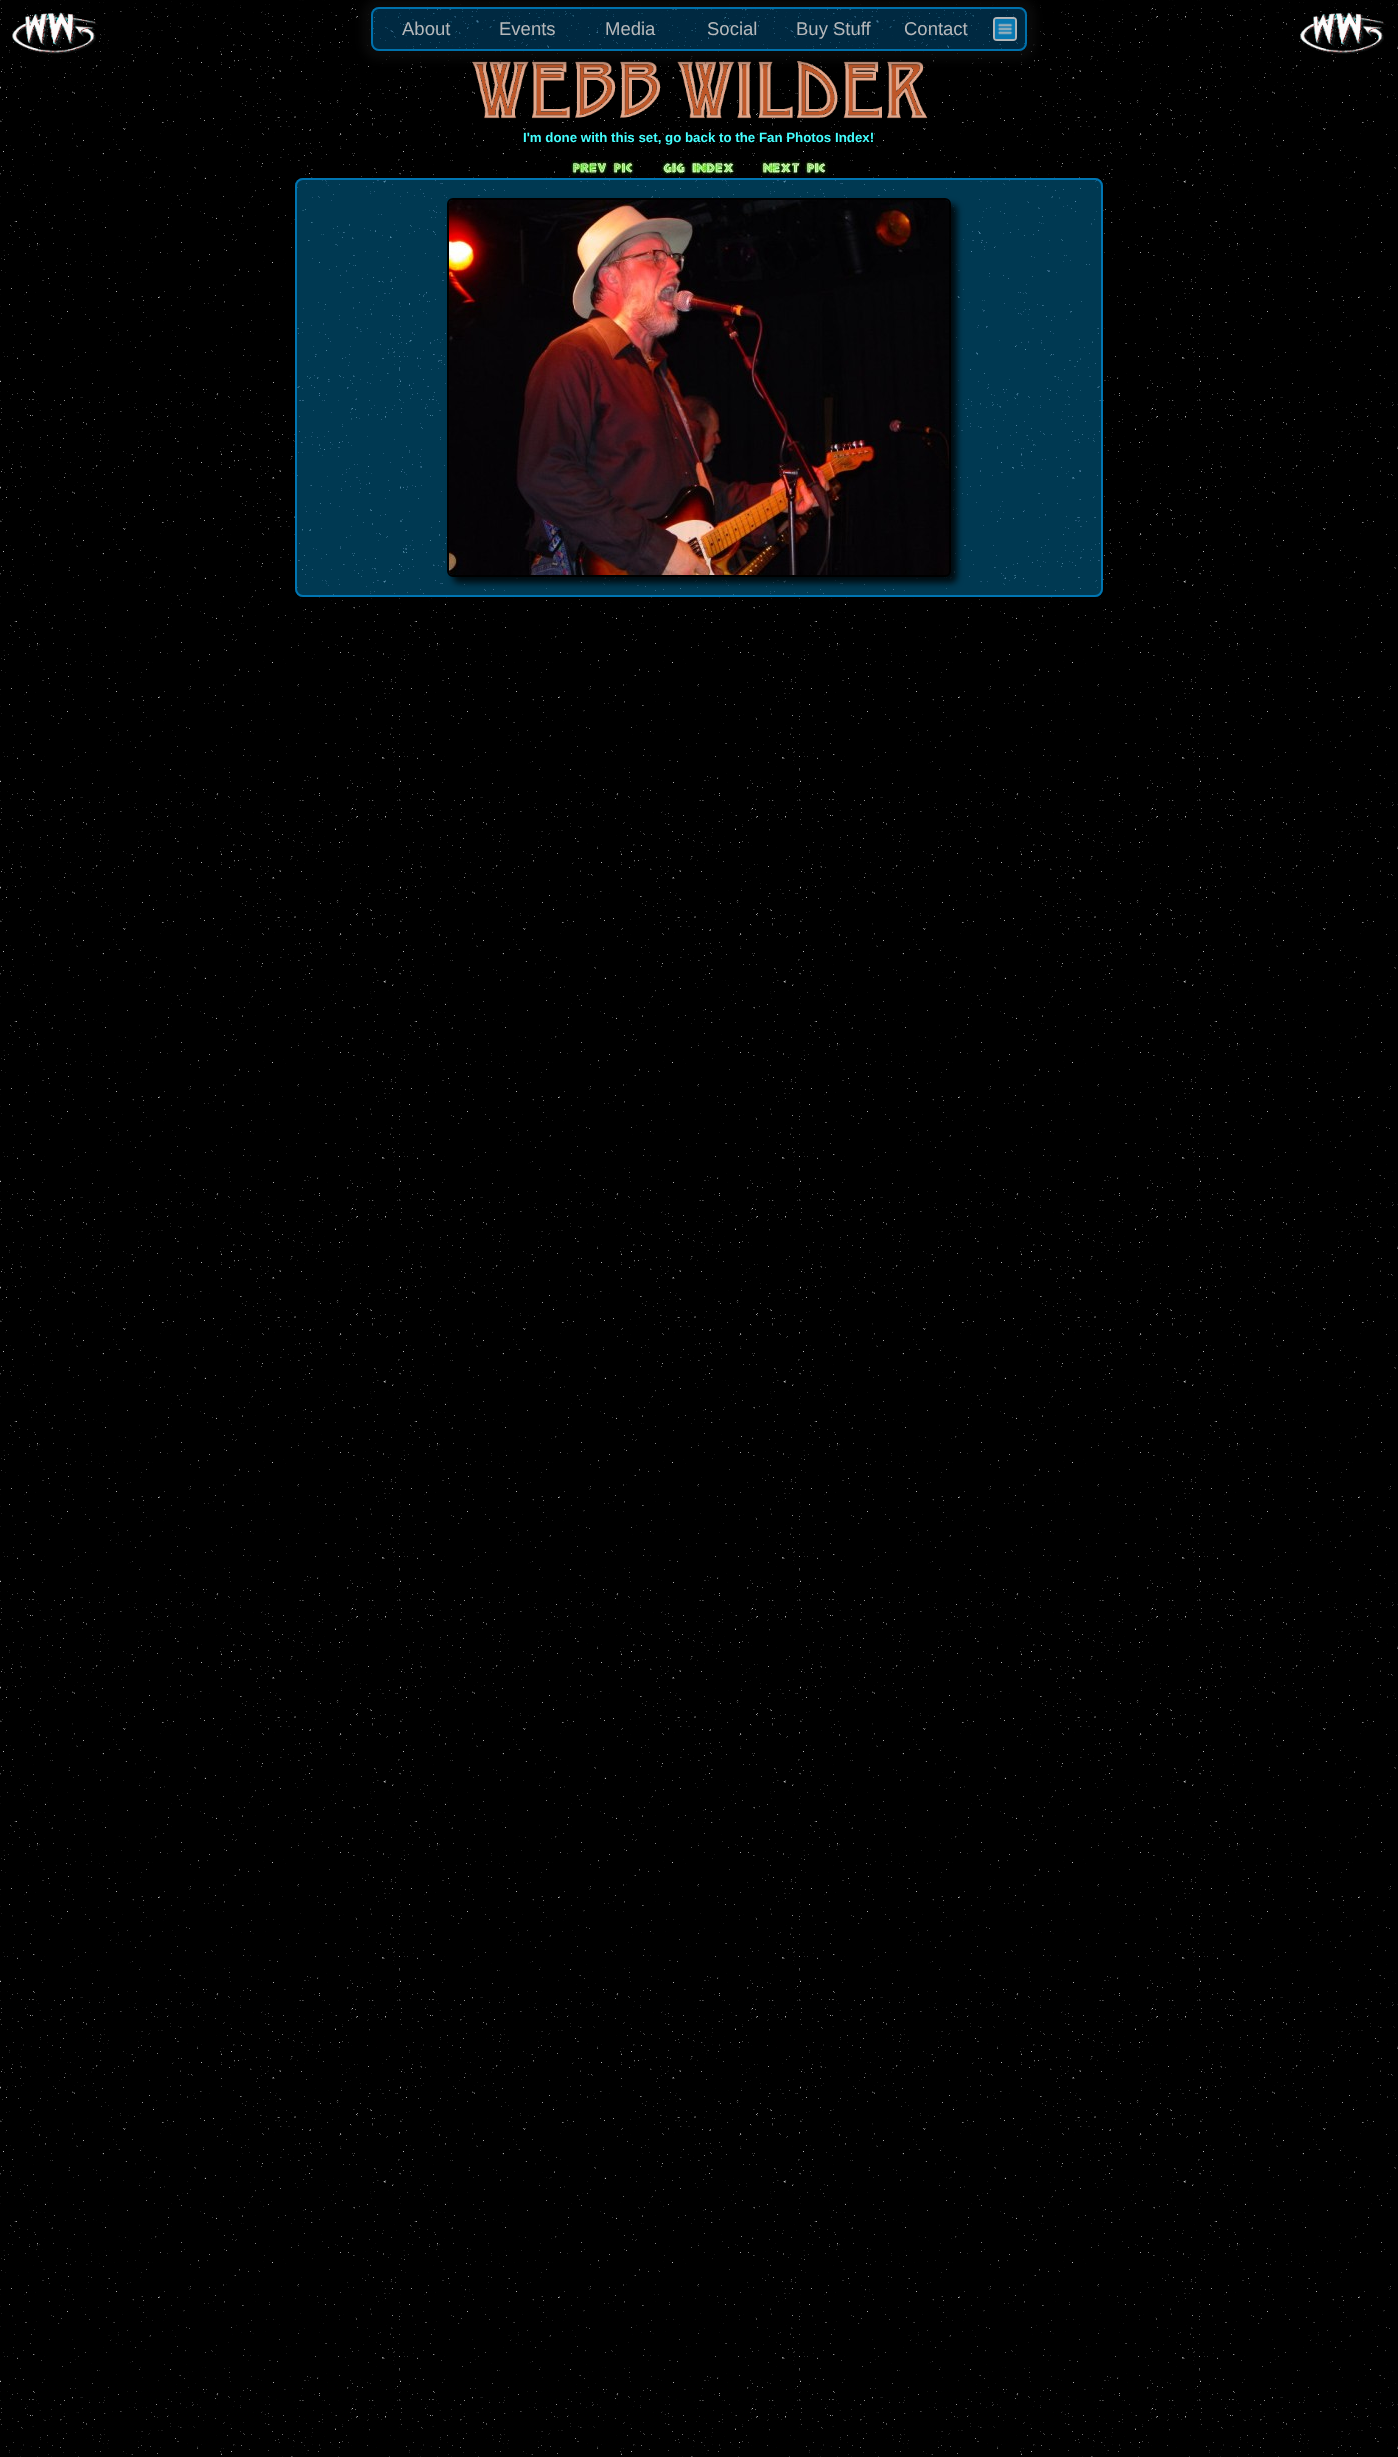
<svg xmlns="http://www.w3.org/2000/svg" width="1398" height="2457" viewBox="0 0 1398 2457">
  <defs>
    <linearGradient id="g1" gradientUnits="userSpaceOnUse" x1="699" y1="0" x2="699" y2="68"><stop offset="0" stop-color="#000"/><stop offset="0.15" stop-color="#000" stop-opacity="0.01"/></linearGradient>
    <clipPath id="clip1"><path d="M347 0H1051V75H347ZM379 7H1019C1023.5 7 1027 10.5 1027 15V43C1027 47.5 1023.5 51 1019 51H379C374.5 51 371 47.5 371 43V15C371 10.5 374.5 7 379 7Z" clip-rule="evenodd"/></clipPath>
  </defs>
  <rect width="100%" height="100%" fill="#fff"/>
  <image x="0" y="0" width="1398" height="2457" href="img/1.png"/>
  <image x="472" y="61" width="456" height="58" href="img/6.png"/>
  <rect width="1398" height="68" rx="8" fill="url(#g1)"/>
  <image x="12" y="12" width="86" height="42" href="img/2.png"/>
  <g clip-path="url(#clip1)">
    <rect x="362" y="-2" width="674" height="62" rx="17" fill="#0a0a0ad9" filter="blur(4.5px)"/>
  </g>
  <image x="371" y="7" width="656" height="44" href="img/3.png"/>
  <rect x="372" y="8" width="654" height="42" rx="7" fill="none" stroke="#0075b2f2" stroke-width="2"/>
  <rect x="993" y="17" width="24" height="24" rx="4" fill="#c0c0c0f2"/>
  <image x="994" y="18" width="22" height="22" href="img/4.png"/>
  <image x="1300" y="12" width="86" height="42" href="img/5.png"/>
  <image x="570" y="160" width="64" height="16" href="img/7.png"/>
  <image x="660" y="160" width="77" height="16" href="img/8.png"/>
  <image x="760" y="160" width="68" height="16" href="img/9.png"/>
  <image x="295" y="178" width="808" height="419" href="img/10.png"/>
  <rect x="296" y="179" width="806" height="417" rx="7" fill="none" stroke="#0075b2" stroke-width="2"/>
  <rect x="453" y="204" width="504" height="379" rx="6" fill="#000000cc" filter="blur(3px)"/>
  <rect x="448" y="199" width="502" height="377" rx="5" fill="none" stroke="#000" stroke-width="2"/>
  <image x="449" y="200" width="500" height="375" href="img/11.png"/>
  <g font-family="Liberation Sans" font-size="18.5" fill="#b6b8ba">
    <text x="402" y="35">About</text>
    <text x="499" y="35">Events</text>
    <text x="605" y="35">Media</text>
    <text x="707" y="35">Social</text>
    <text x="796" y="35">Buy Stuff</text>
    <text x="904" y="35">Contact</text>
  </g>
  <text x="523" y="142" font-family="Liberation Sans" font-size="13.3" font-weight="bold" fill="#4ff">I'm done with this set, go back to the Fan Photos Index!</text>
</svg>
